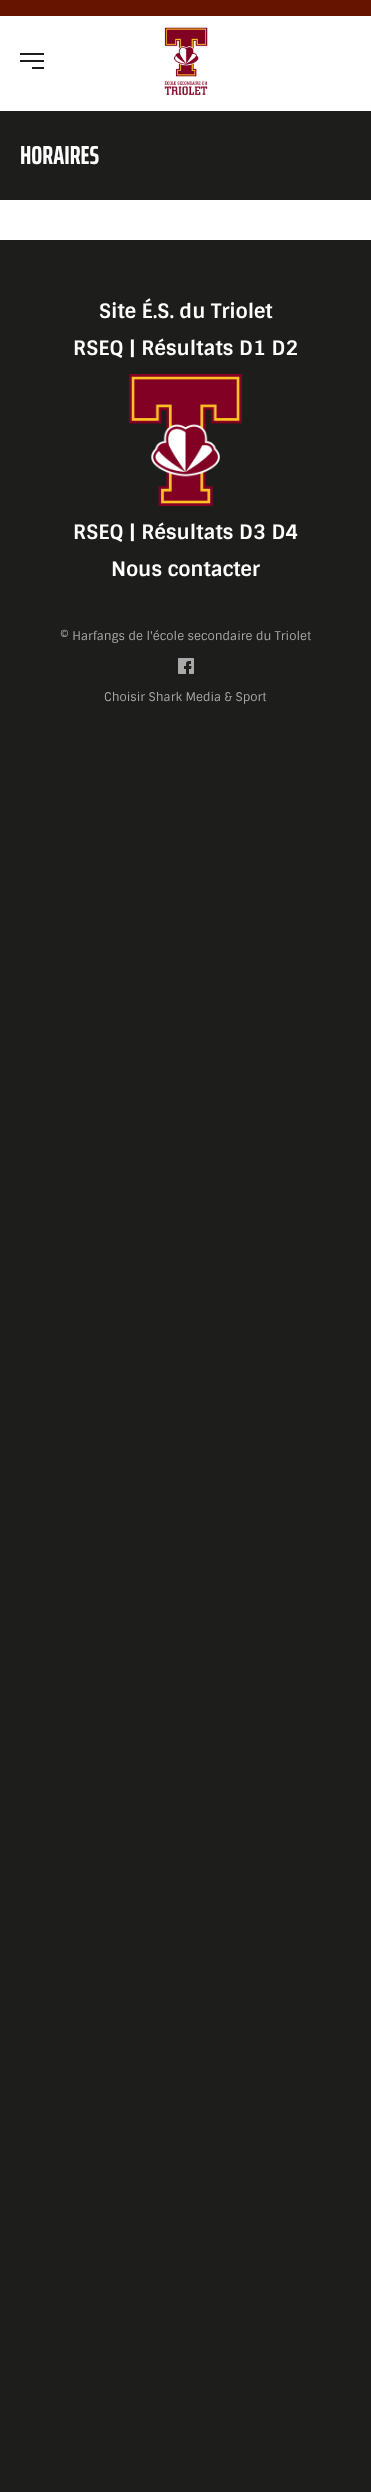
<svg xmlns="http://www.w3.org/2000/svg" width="371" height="2492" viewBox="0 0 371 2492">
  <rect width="100%" height="100%" fill="#1d1d1b"/>
  <path d="M0 0h371v16H0z" fill="#661400"/>
  <path d="M0 16h371v95H0z" fill="#fff"/>
  <path d="M20 53h24v2H20z" fill="#1d1d1b"/>
  <path d="M20 60h24v2H20z" fill="#1d1d1b"/>
  <path d="M32 67h12v2H32z" fill="#1d1d1b"/>
  <image x="164" y="27" width="44" height="68" href="img/1.png"/>
  <path d="M0 200h371v40H0z" fill="#fff"/>
  <image x="129" y="374" width="113" height="132" href="img/2.png"/>
  <image x="178" y="658" width="16" height="16" href="img/3.png"/>
  <text x="20" y="164" font-family="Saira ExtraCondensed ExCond" font-size="26" font-weight="bold" fill="#fff">HORAIRES</text>
  <g font-family="Sintony" font-size="20" font-weight="bold" fill="#fff">
    <text x="99" y="318">Site É.S. du Triolet</text>
    <text x="73" y="355">RSEQ | Résultats D1 D2</text>
    <text x="73" y="539">RSEQ | Résultats D3 D4</text>
    <text x="111" y="576">Nous contacter</text>
  </g>
  <g font-family="Sintony" font-size="12" fill="#a9a9a9">
    <text x="60" y="640">© Harfangs de l'école secondaire du Triolet</text>
    <text x="104" y="701">Choisir Shark Media &amp; Sport</text>
  </g>
</svg>
